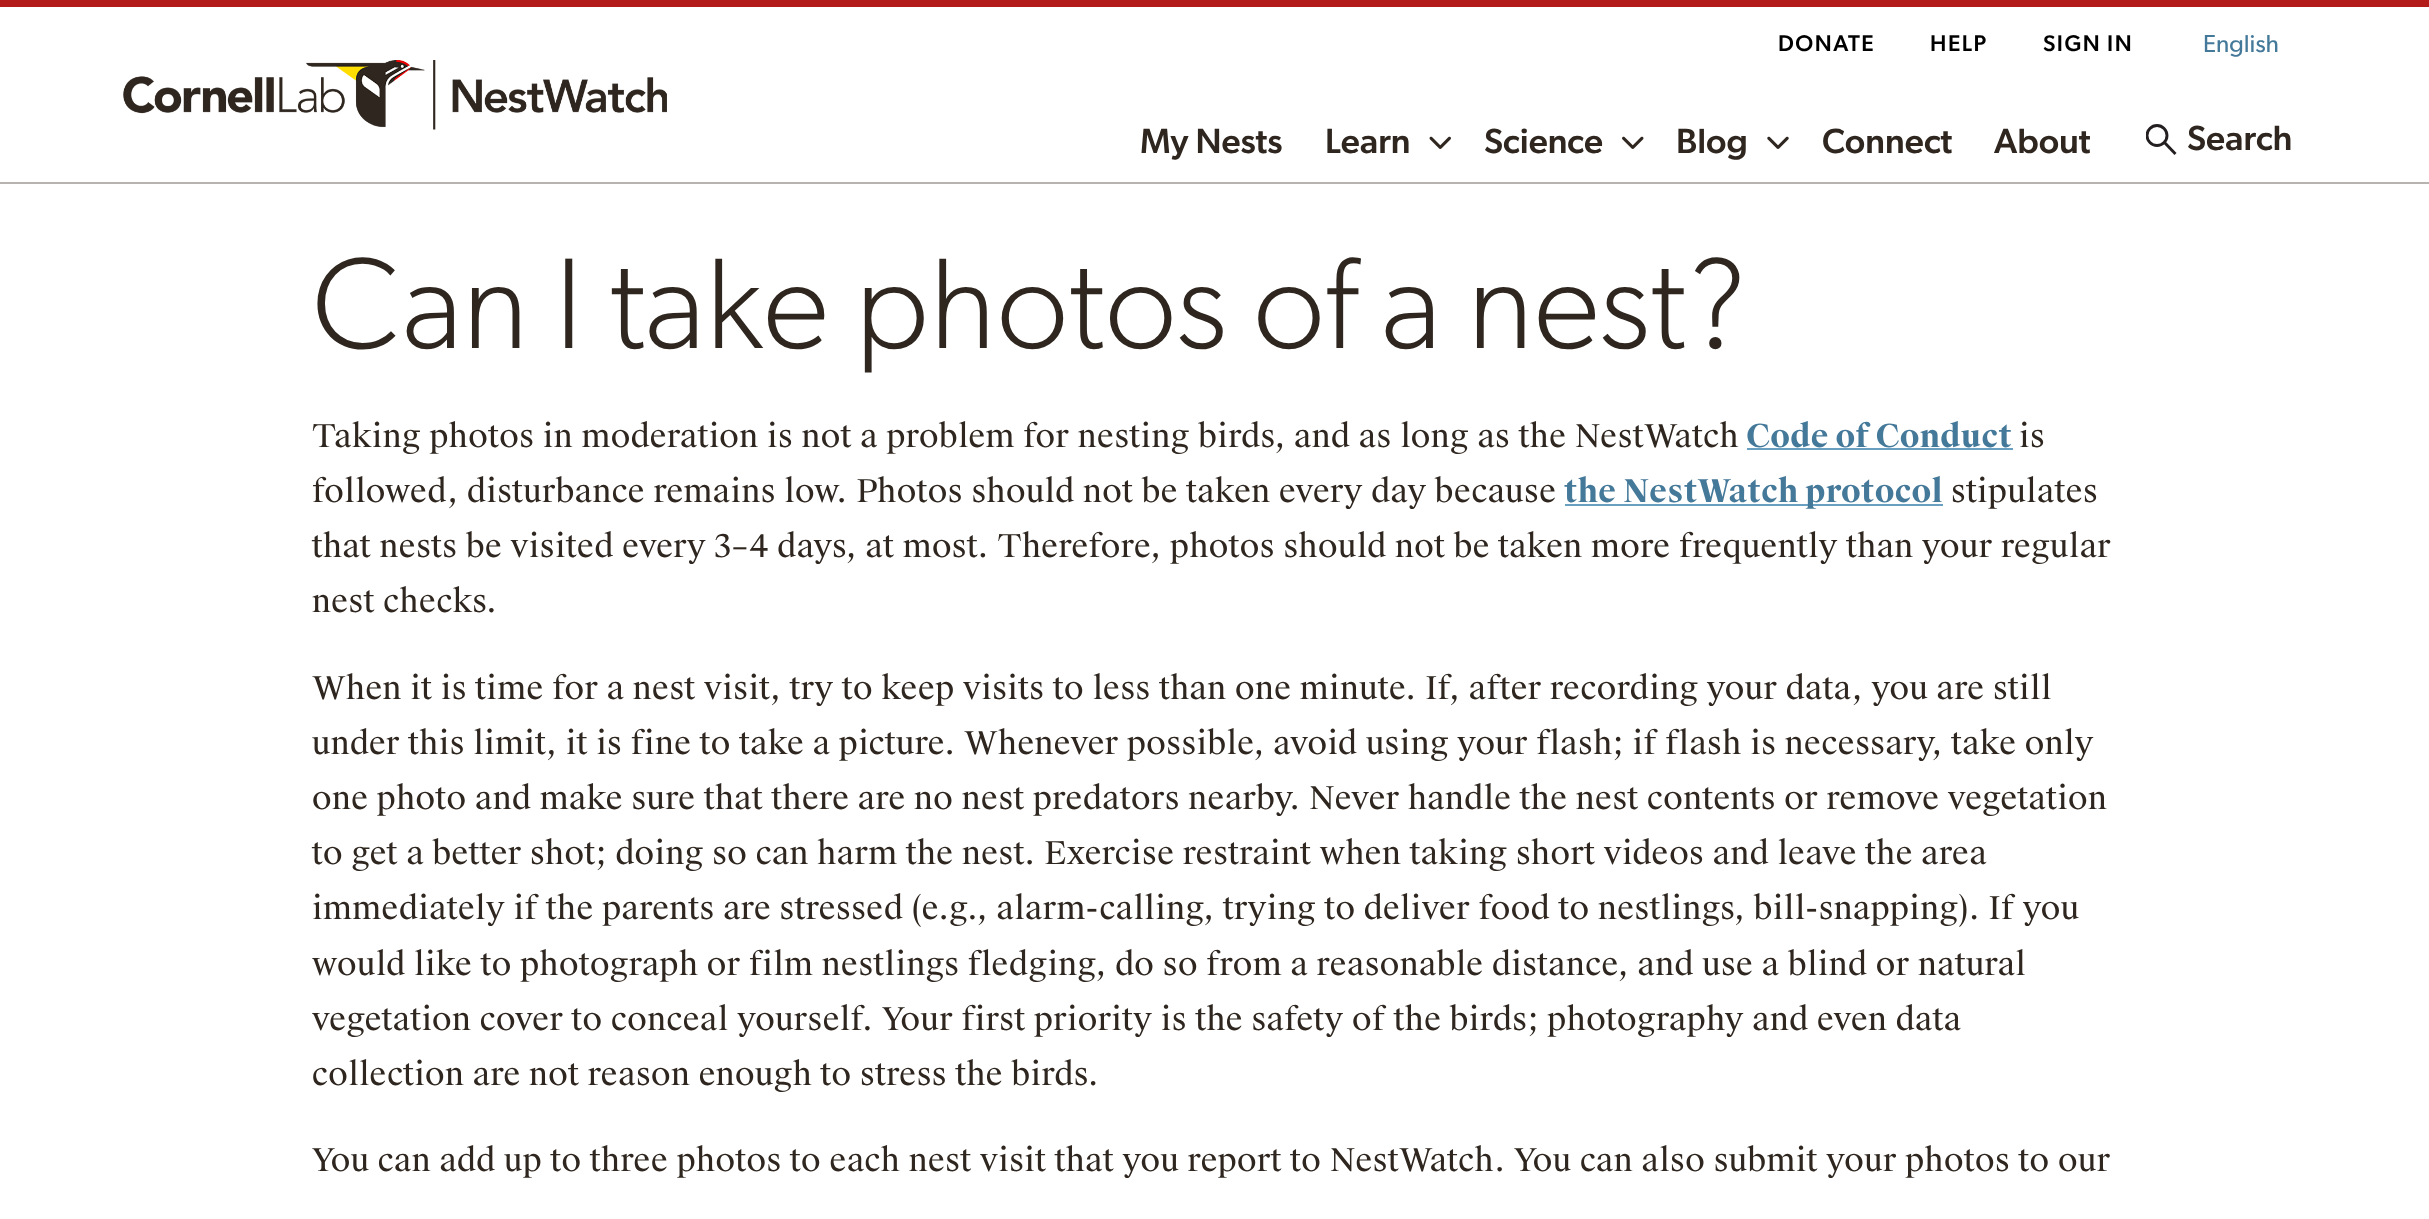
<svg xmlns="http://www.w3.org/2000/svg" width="2429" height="1219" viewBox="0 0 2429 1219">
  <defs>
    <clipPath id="clip1"><path d="M2146 124h31v32H2146z"/></clipPath>
  </defs>
  <rect width="100%" height="100%" fill="#fff"/>
  <path d="M0 0h2429v7H0z" fill="#b31b1b"/>
  <path d="M0 182h2429v2H0z" fill="#b6b3b1"/>
  <image x="123" y="60" width="544" height="70" href="img/1.png"/>
  <image x="1429" y="136" width="22" height="13" href="img/2.png"/>
  <image x="1622" y="136" width="22" height="13" href="img/3.png"/>
  <image x="1767" y="136" width="22" height="13" href="img/4.png"/>
  <g clip-path="url(#clip1)">
    <circle cx="2157" cy="135.5" r="10" fill="none" stroke="#231f20" stroke-width="2.9"/>
  </g>
  <path d="M2164 142L2175.5 154" fill="none" stroke="#231f20" stroke-width="2.9"/>
  <path d="M1747 448h266v2H1747z" fill="#69a0c2"/>
  <path d="M1565 504h378v2H1565z" fill="#69a0c2"/>
  <g font-family="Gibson" font-size="22.75" font-weight="500" letter-spacing="1.5" fill="#000">
    <text x="1778" y="51">DONATE</text>
    <text x="1930" y="51">HELP</text>
    <text x="2043" y="51">SIGN IN</text>
  </g>
  <text x="2203" y="52" font-family="Gibson" font-size="24.5" fill="#457999">English</text>
  <g font-family="Gibson" font-size="35" font-weight="500" fill="#2e261f">
    <text x="1140" y="153">My Nests</text>
    <text x="1325" y="153">Learn</text>
    <text x="1484" y="153">Science</text>
    <text x="1676" y="153">Blog</text>
    <text x="1822" y="153">Connect</text>
    <text x="1994" y="153">About</text>
    <text x="2187" y="150">Search</text>
  </g>
  <text x="312" y="348" font-family="Gibson" font-size="129.5" font-weight="300" fill="#2e261f">Can I take photos of a nest?</text>
  <text x="312" y="447" font-family="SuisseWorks" font-size="31.5" letter-spacing="0.32" fill="#2e261f">Taking photos in moderation is not a problem for nesting birds, and as long as the NestWatch</text>
  <text x="1746" y="447" font-family="SuisseWorks" font-size="31.5" font-weight="bold" letter-spacing="0.32" fill="#457999">Code of Conduct</text>
  <g font-family="SuisseWorks" font-size="31.5" letter-spacing="0.32" fill="#2e261f">
    <text x="2019" y="447">is</text>
    <text x="312" y="502">followed, disturbance remains low. Photos should not be taken every day because</text>
  </g>
  <text x="1564" y="502" font-family="SuisseWorks" font-size="31.5" font-weight="bold" letter-spacing="0.32" fill="#457999">the NestWatch protocol</text>
  <g font-family="SuisseWorks" font-size="31.5" letter-spacing="0.32" fill="#2e261f">
    <text x="1951" y="502">stipulates</text>
    <text x="312" y="557">that nests be visited every 3–4 days, at most. Therefore, photos should not be taken more frequently than your regular</text>
    <text x="312" y="612">nest checks.</text>
    <text x="312" y="699">When it is time for a nest visit, try to keep visits to less than one minute. If, after recording your data, you are still</text>
    <text x="312" y="754">under this limit, it is fine to take a picture. Whenever possible, avoid using your flash; if flash is necessary, take only</text>
    <text x="312" y="809">one photo and make sure that there are no nest predators nearby. Never handle the nest contents or remove vegetation</text>
    <text x="312" y="864">to get a better shot; doing so can harm the nest. Exercise restraint when taking short videos and leave the area</text>
    <text x="312" y="919">immediately if the parents are stressed (e.g., alarm-calling, trying to deliver food to nestlings, bill-snapping). If you</text>
    <text x="312" y="975">would like to photograph or film nestlings fledging, do so from a reasonable distance, and use a blind or natural</text>
    <text x="312" y="1030">vegetation cover to conceal yourself. Your first priority is the safety of the birds; photography and even data</text>
    <text x="312" y="1085">collection are not reason enough to stress the birds.</text>
    <text x="312" y="1171">You can add up to three photos to each nest visit that you report to NestWatch. You can also submit your photos to our</text>
  </g>
</svg>
